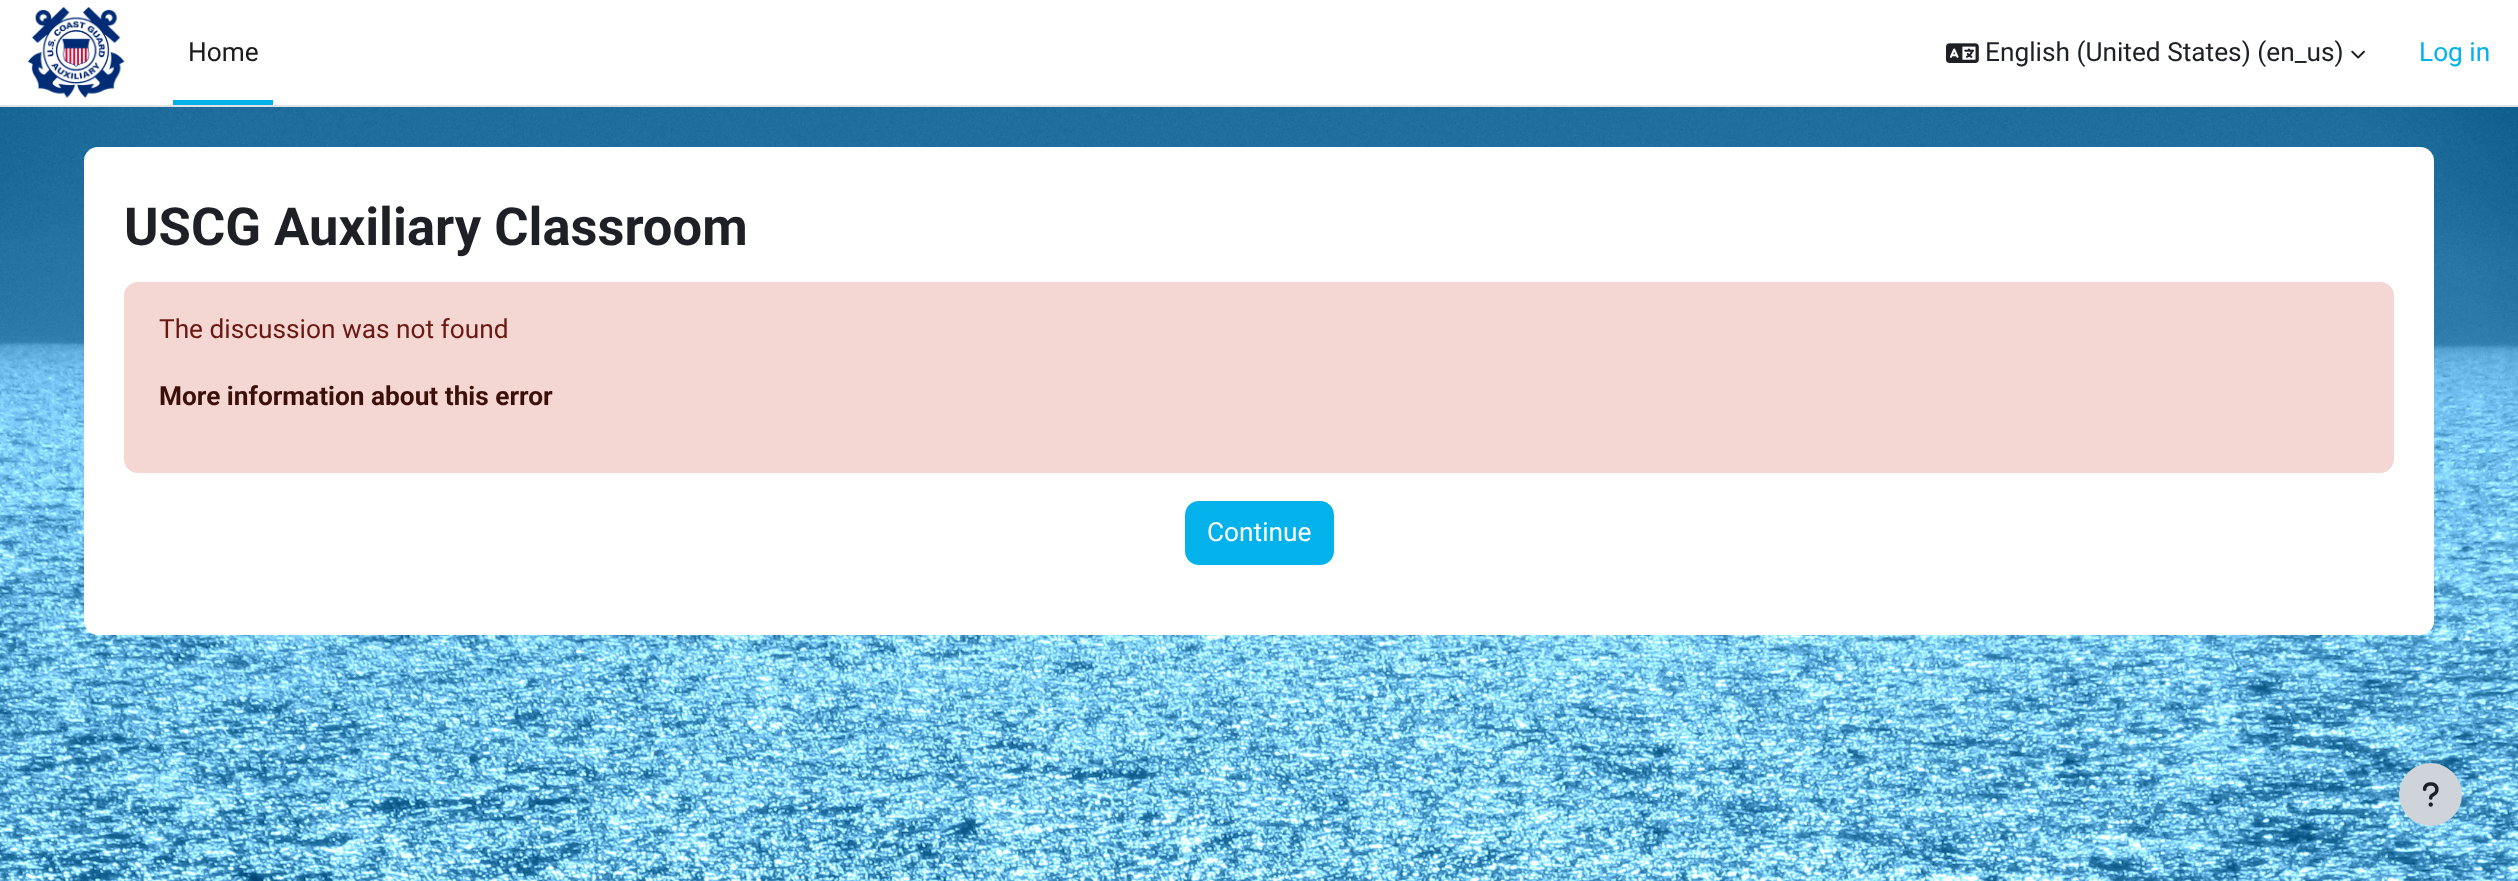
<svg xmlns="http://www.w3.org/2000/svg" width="2518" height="881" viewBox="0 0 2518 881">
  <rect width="100%" height="100%" fill="#fff"/>
  <image x="0" y="107" width="2518" height="774" href="img/1.png"/>
  <path d="M0 105h2518v2H0z" fill="#dee2e6"/>
  <image x="28" y="7" width="97" height="91" href="img/2.png"/>
  <path d="M173 100h100v5H173z" fill="#04b2eb"/>
  <image x="1946" y="43" width="33" height="20" href="img/3.png"/>
  <image x="2351" y="50" width="14" height="9" href="img/4.png"/>
  <rect x="84" y="147" width="2350" height="488" rx="14" fill="#fff"/>
  <rect x="124" y="282" width="2270" height="191" rx="14" fill="#f4d6d2"/>
  <rect x="1186" y="502" width="147" height="62" rx="13" fill="#04b2eb" stroke="#04b2eb" stroke-width="2"/>
  <circle cx="2430.5" cy="794.5" r="31.5" fill="#ced4da"/>
  <image x="2422" y="782" width="17" height="25" href="img/5.png"/>
  <text x="188" y="61" font-family="Roboto" font-size="26.25" fill="#1a1a1a">Home</text>
  <text x="1985" y="61" font-family="Roboto" font-size="26.25" fill="#1d2125">English (United States) (en_us)</text>
  <text x="2419" y="61" font-family="Roboto" font-size="26.25" fill="#04b2eb">Log in</text>
  <text x="124" y="245" font-family="Roboto" font-size="52.5" font-weight="bold" fill="#1d2125">USCG Auxiliary Classroom</text>
  <text x="159" y="338" font-family="Roboto" font-size="26.25" fill="#691911">The discussion was not found</text>
  <text x="159" y="405" font-family="Roboto" font-size="26.25" font-weight="bold" fill="#3d0f0a">More information about this error</text>
  <text x="1207" y="541" font-family="Roboto" font-size="26.25" fill="#fff">Continue</text>
</svg>
